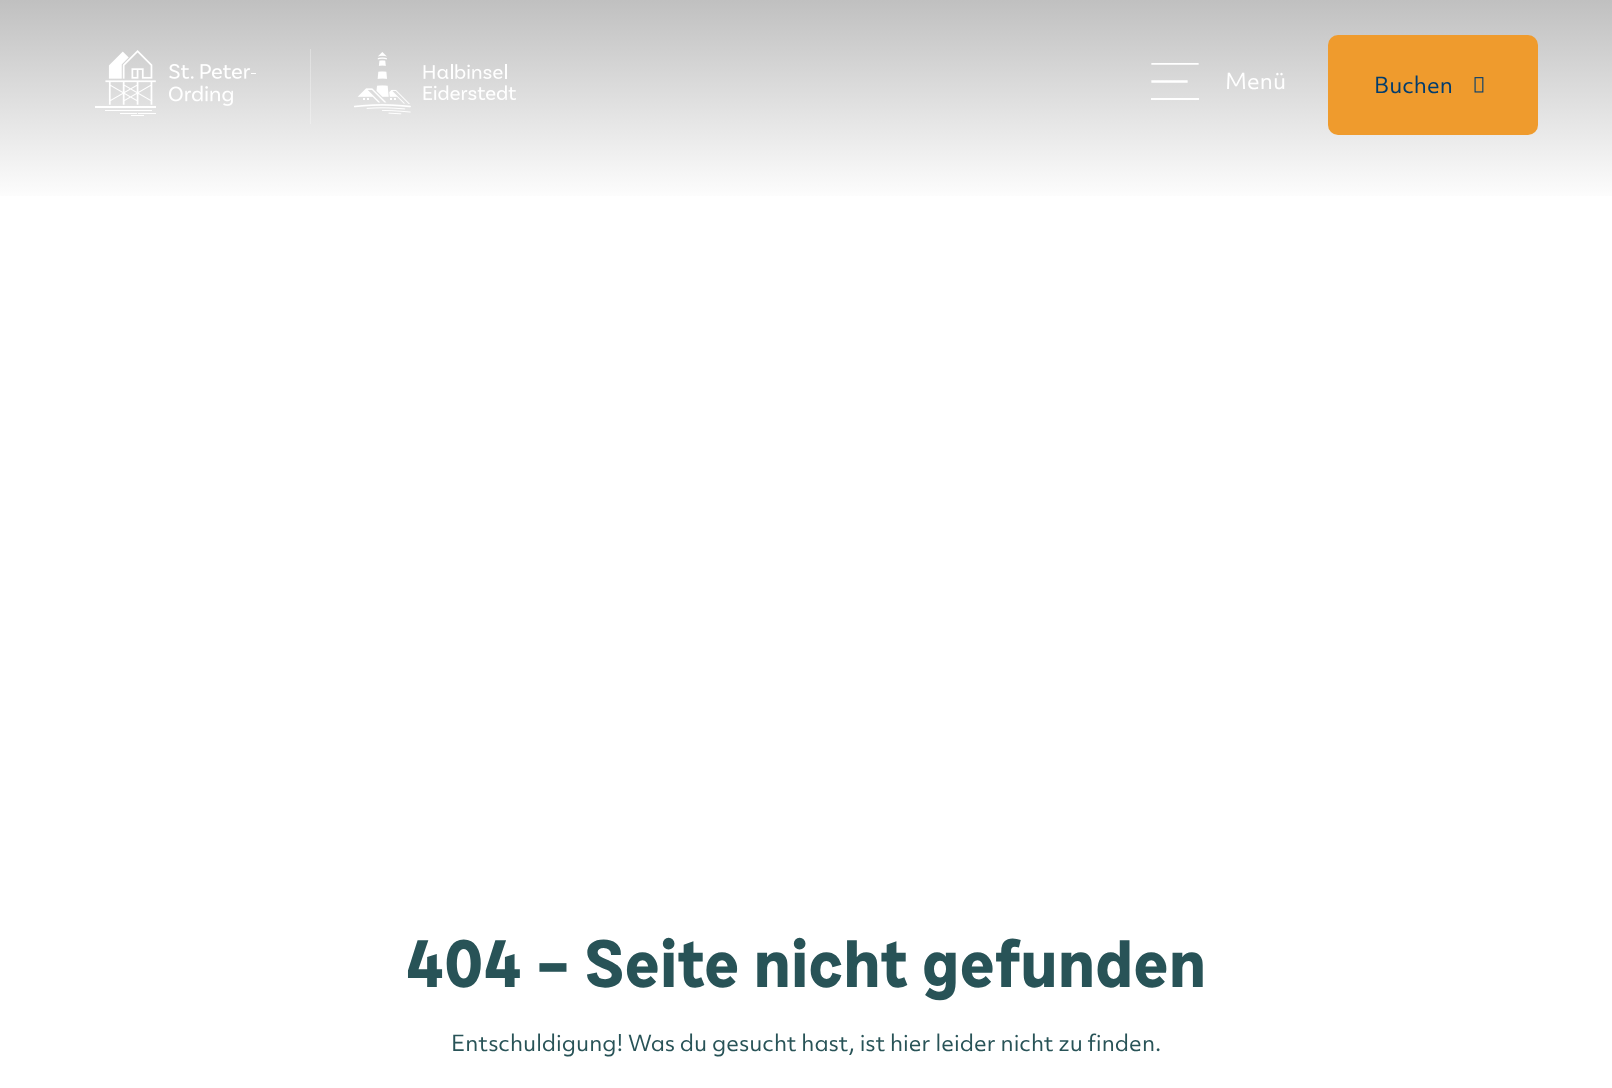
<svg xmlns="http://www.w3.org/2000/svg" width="1612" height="1088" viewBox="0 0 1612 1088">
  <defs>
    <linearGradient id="g1" gradientUnits="userSpaceOnUse" x1="806" y1="204" x2="806" y2="0"><stop offset="0" stop-color="#fff"/><stop offset="1" stop-color="#c0c0c0"/></linearGradient>
    <linearGradient id="g2" gradientUnits="userSpaceOnUse" x1="806" y1="204" x2="806" y2="0"><stop offset="0" stop-color="#fff"/><stop offset="1" stop-color="#d3d3d3"/></linearGradient>
    <clipPath id="clip1"><path d="M1150 63h50v37H1150z"/></clipPath>
  </defs>
  <rect width="100%" height="100%" fill="#fff"/>
  <path d="M0 0h1612v196H0z" fill="url(#g1)"/>
  <path d="M310 49h1v75H310z" fill="url(#g2)"/>
  <image x="95" y="50" width="161" height="66" href="img/1.png"/>
  <image x="354" y="52" width="162" height="63" href="img/2.png"/>
  <g clip-path="url(#clip1)">
    <path d="M1152.5 63.5H1197.5" fill="none" stroke="#fff" stroke-width="2.3" stroke-linecap="square" stroke-linejoin="round"/>
  </g>
  <path d="M1152.5 81.5H1186.5" fill="none" stroke="#fff" stroke-width="2.3" stroke-linecap="square"/>
  <path d="M1151 98h48v2H1151z" fill="#fff"/>
  <rect x="1328" y="35" width="210" height="100" rx="10" fill="#ef9b2d"/>
  <image x="1474" y="77" width="10" height="16" href="img/3.png"/>
  <text x="1225" y="89" font-family="'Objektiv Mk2'" font-size="21.55" fill="#fff">Menü</text>
  <text x="1374" y="93" font-family="'Objektiv Mk2'" font-size="21.55" fill="#003c6e">Buchen</text>
  <text x="406" y="987" font-family="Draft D" font-size="66.8" font-weight="bold" fill="#285357">404 – Seite nicht gefunden</text>
  <text x="451" y="1051" font-family="'Objektiv Mk2'" font-size="21.55" fill="#285357">Entschuldigung! Was du gesucht hast, ist hier leider nicht zu finden.</text>
</svg>
